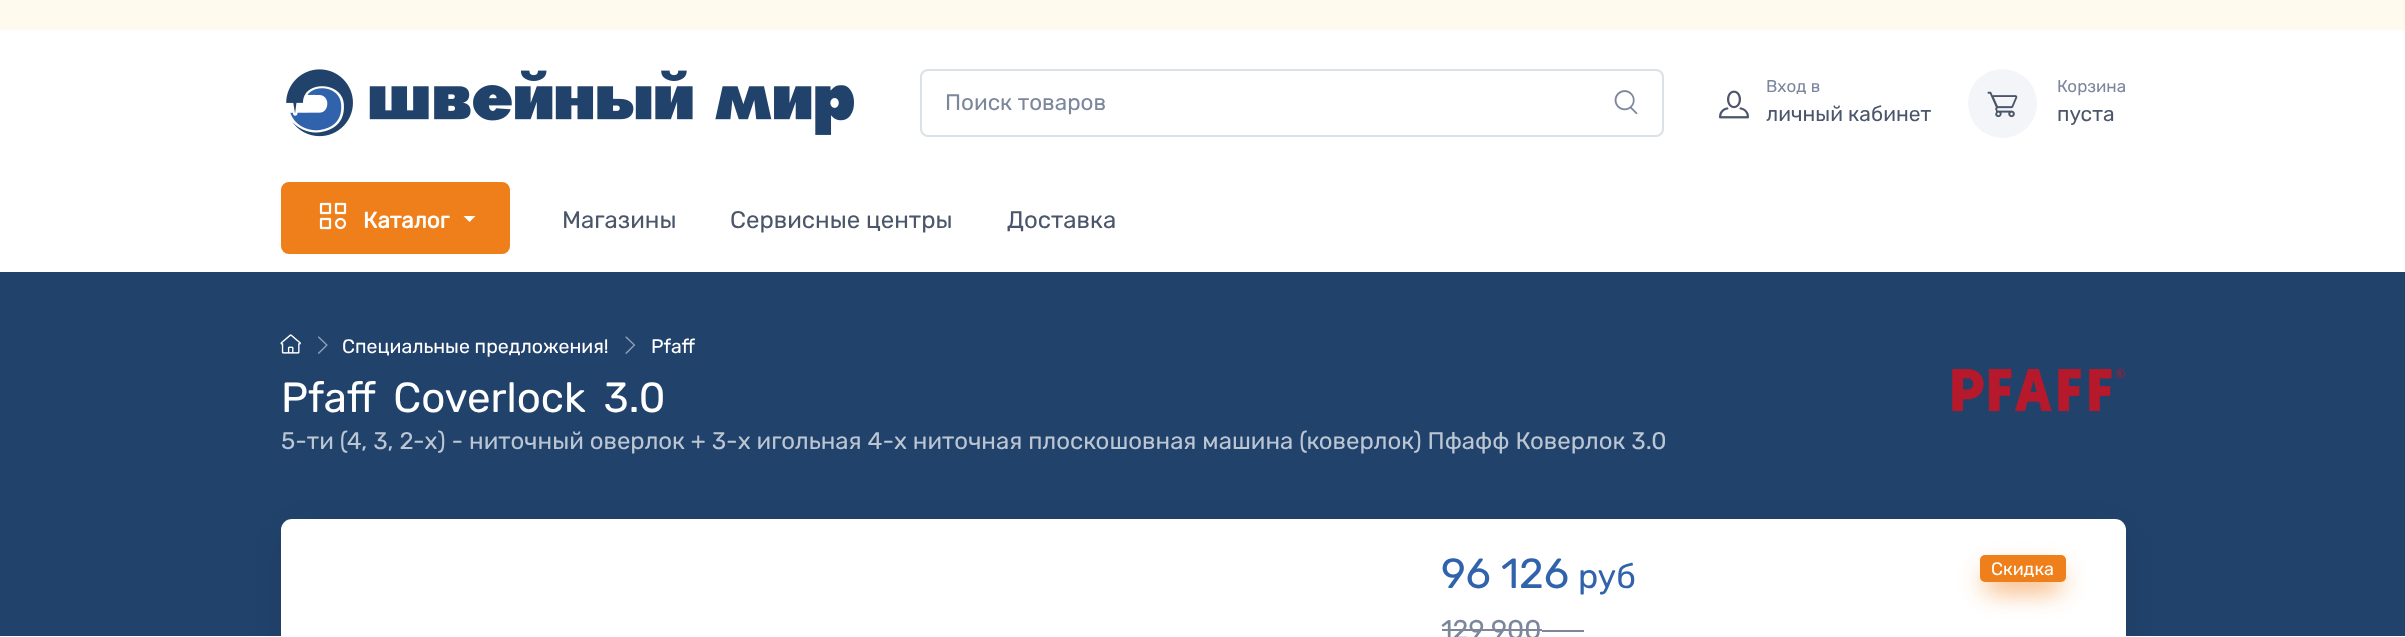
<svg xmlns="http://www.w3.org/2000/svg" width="2405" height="637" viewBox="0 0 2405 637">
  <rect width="100%" height="100%" fill="#fff"/>
  <path d="M0 0h2405v30H0z" fill="#fffaee"/>
  <image x="286" y="69" width="568" height="68" href="img/1.png"/>
  <rect x="921" y="70" width="742" height="66" rx="7" fill="none" stroke="#dae1e7" stroke-width="2"/>
  <image x="1614" y="90" width="24" height="25" href="img/2.png"/>
  <image x="1719" y="90" width="30" height="29" href="img/3.png"/>
  <circle cx="2002.5" cy="103.5" r="34.5" fill="#f3f5f9"/>
  <image x="1987" y="91" width="31" height="27" href="img/4.png"/>
  <rect x="282" y="183" width="227" height="70" rx="7" fill="#ef7f1a" stroke="#ef7f1a" stroke-width="2"/>
  <image x="319" y="202" width="28" height="28" href="img/5.png"/>
  <path d="M463.5 216H475.5L469.5 222Z" fill="#fff"/>
  <path d="M0 272h2405v364H0z" fill="#21426b"/>
  <image x="280" y="334" width="21" height="20" href="img/6.png"/>
  <image x="318" y="336" width="10" height="18" href="img/7.png"/>
  <image x="625" y="336" width="11" height="18" href="img/8.png"/>
  <image x="1952" y="369" width="173" height="42" href="img/9.png"/>
  <rect x="290" y="536" width="1827" height="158" rx="1.5" fill="#0000001a" filter="blur(18.5px)"/>
  <rect x="281" y="519" width="1845" height="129" rx="11" fill="#fff"/>
  <path d="M1442 629h100v2H1442z" fill="#7d879c"/>
  <path d="M1542 630h42v2H1542z" fill="#7d879c"/>
  <path d="M1986 573h74v15H1986z" fill="#ef7f1ae6" filter="blur(13.5px)"/>
  <rect x="1980" y="555" width="86" height="27" rx="5" fill="#ef7f1a"/>
  <text x="945" y="110" font-family="Rubik" font-size="22.5" fill="#7d879c">Поиск товаров</text>
  <text x="1766" y="92" font-family="Rubik" font-size="17" fill="#7d879c">Вход в</text>
  <text x="1766" y="121" font-family="Rubik" font-size="21" fill="#4b566b">личный кабинет</text>
  <text x="2057" y="92" font-family="Rubik" font-size="17" fill="#7d879c">Корзина</text>
  <text x="2057" y="121" font-family="Rubik" font-size="21" fill="#4b566b">пуста</text>
  <text x="363" y="228" font-family="Rubik" font-size="22.5" font-weight="bold" fill="#fff">Каталог</text>
  <g font-family="Rubik" font-size="24" fill="#4b566b">
    <text x="562" y="228">Магазины</text>
    <text x="730" y="228">Сервисные центры</text>
    <text x="1007" y="228">Доставка</text>
  </g>
  <g font-family="Rubik" font-size="19.5" fill="#fff">
    <text x="342" y="353">Специальные предложения!</text>
    <text x="651" y="353">Pfaff</text>
  </g>
  <text x="281" y="412" word-spacing="8" font-family="Rubik" font-size="42" fill="#fff">Pfaff Coverlock 3.0</text>
  <text x="281" y="449" font-family="Rubik" font-size="24" fill="#bcc6d3">5-ти (4, 3, 2-x) - ниточный оверлок + 3-х игольная 4-х ниточная плоскошовная машина (коверлок) Пфафф Коверлок 3.0</text>
  <text x="1441" y="588" font-family="Rubik" font-size="42" fill="#3163ad">96 126</text>
  <text x="1578" y="588" font-family="Rubik" font-size="34" fill="#3163ad">руб</text>
  <text x="1441" y="639" font-family="Rubik" font-size="27" fill="#7d879c">129 900</text>
  <text x="1991" y="575" font-family="Rubik" font-size="18" fill="#fff">Скидка</text>
</svg>
